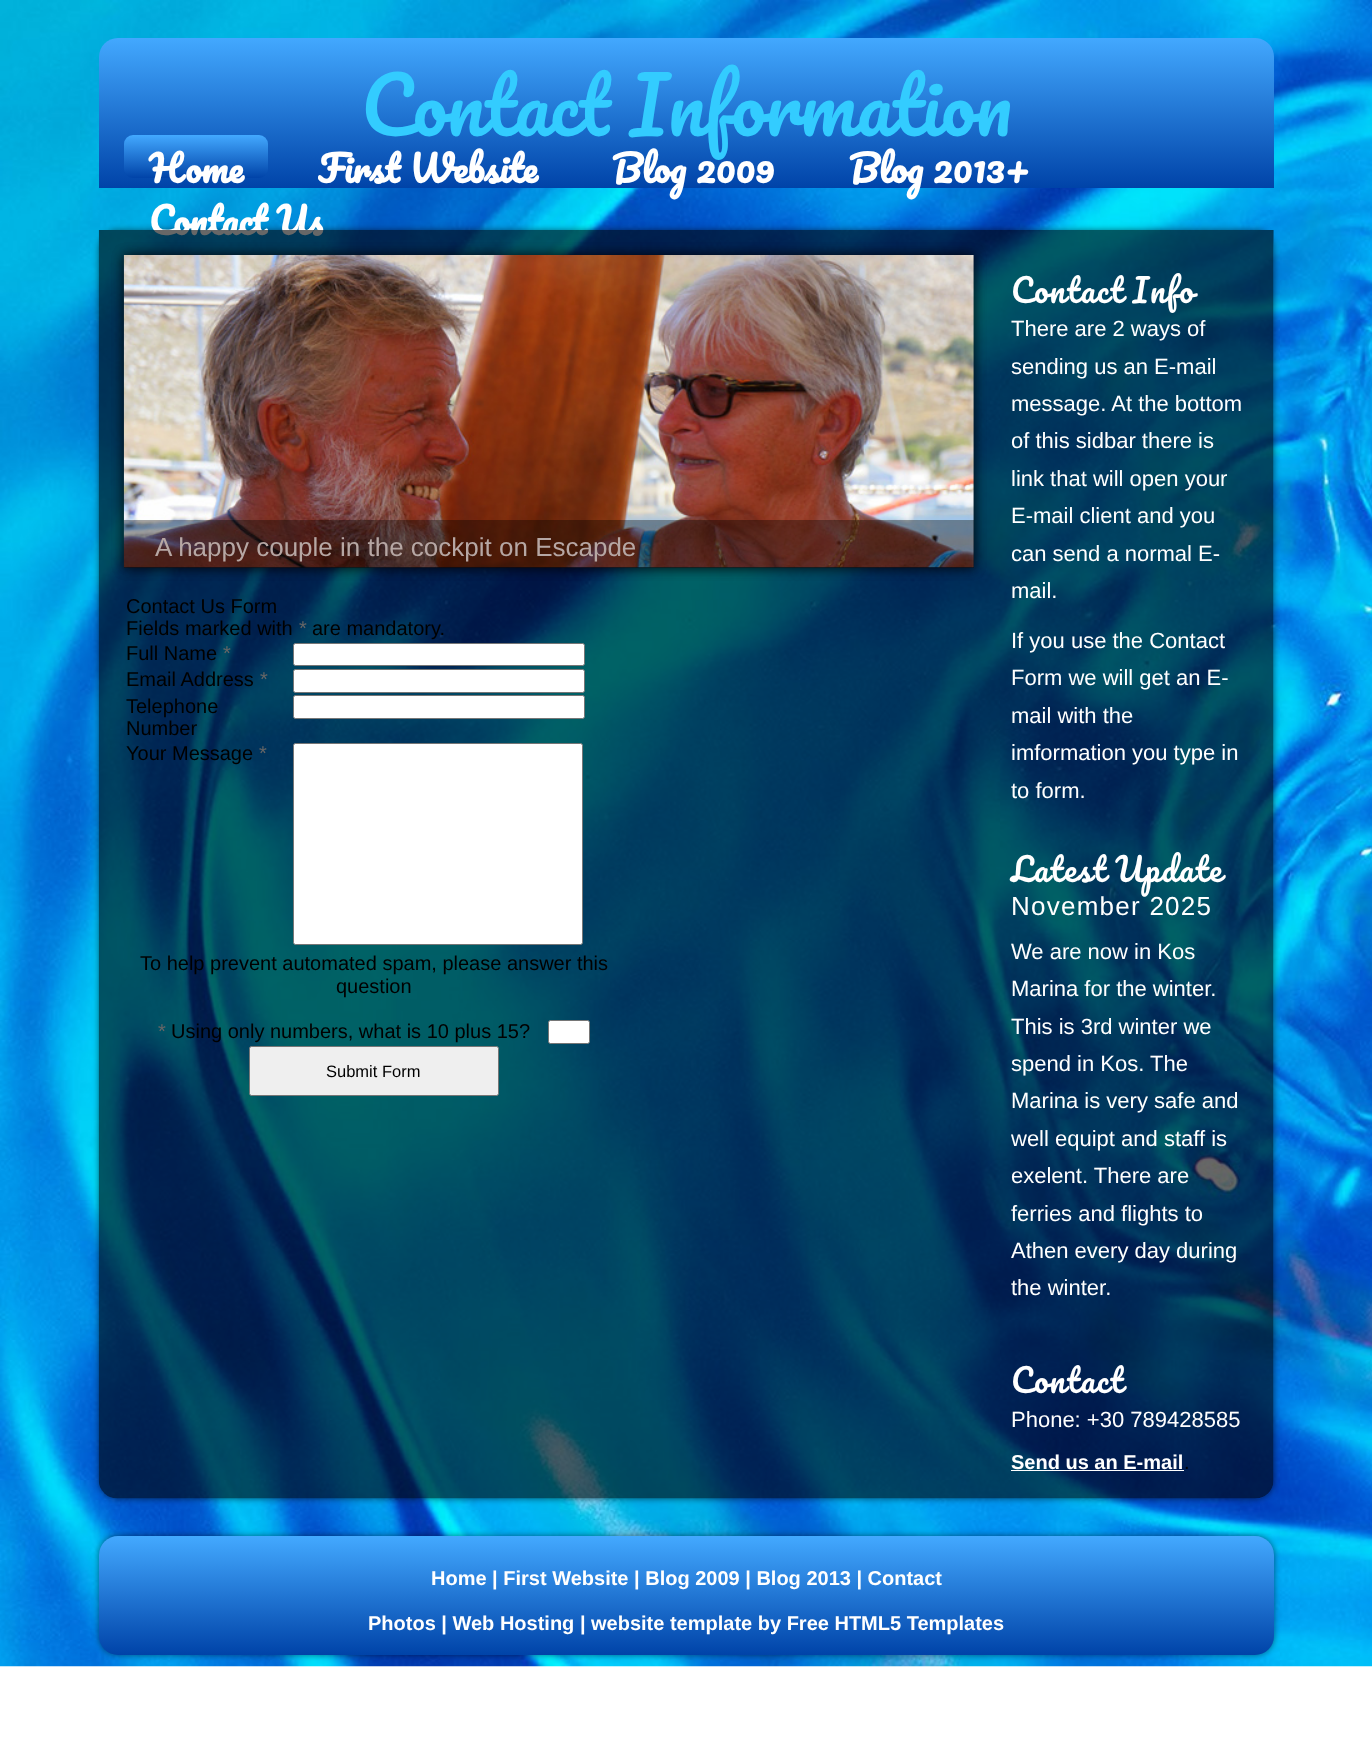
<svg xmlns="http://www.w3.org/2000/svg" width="1372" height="1751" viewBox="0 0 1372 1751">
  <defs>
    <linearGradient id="g1" gradientUnits="userSpaceOnUse" x1="686" y1="37" x2="686" y2="188"><stop offset="0" stop-color="#43a9ff"/><stop offset="1" stop-color="#0043a8"/></linearGradient>
    <linearGradient id="g2" gradientUnits="userSpaceOnUse" x1="196" y1="135" x2="196" y2="178"><stop offset="0" stop-color="#43a9ff"/><stop offset="1" stop-color="#0043a8"/></linearGradient>
    <clipPath id="clip1"><path d="M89 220H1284V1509H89ZM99 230H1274V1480C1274 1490.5 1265.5 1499 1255 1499H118C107.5 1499 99 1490.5 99 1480Z" clip-rule="evenodd"/></clipPath>
    <linearGradient id="g3" gradientUnits="userSpaceOnUse" x1="686" y1="1536" x2="686" y2="1655"><stop offset="0" stop-color="#43a9ff"/><stop offset="1" stop-color="#0043a8"/></linearGradient>
  </defs>
  <rect width="100%" height="100%" fill="#fff"/>
  <image x="0" y="0" width="1372" height="1667" href="img/1.png"/>
  <path d="M118 38H1255C1265.5 38 1274 46.5 1274 57V188H99V57C99 46.5 107.5 38 118 38Z" fill="url(#g1)"/>
  <rect x="124" y="135" width="144" height="43" rx="9" fill="url(#g2)"/>
  <g clip-path="url(#clip1)">
    <rect x="99" y="230" width="1175" height="1269" rx="19" fill="#00000080" filter="blur(3px)"/>
  </g>
  <rect x="99" y="1536" width="1175" height="119" rx="19" fill="#00000080" filter="blur(3px)"/>
  <rect x="99" y="1536" width="1175" height="119" rx="19" fill="url(#g3)"/>
  <text x="361" y="136" font-family="Pacifico" font-size="76" fill="#3cf">Contact Information</text>
  <g font-family="Pacifico" font-size="36" font-weight="bold" fill="#fff">
    <text x="149" y="183">Home</text>
    <text x="318" y="183">First Website</text>
    <text x="612" y="183">Blog 2009</text>
    <text x="849" y="183">Blog 2013+</text>
    <text x="149" y="235">Contact Us</text>
  </g>
  <image x="98" y="230" width="1176" height="1269" href="img/2.png"/>
  <path d="M124 255h850v313H124z" fill="#00000080" filter="blur(6px)"/>
  <path d="M124 255h850v313H124z" fill="#00000080" filter="blur(6px)"/>
  <image x="123" y="255" width="851" height="313" href="img/3.png"/>
  <path d="M124 520h850v48H124z" fill="#0000005c"/>
  <text x="155" y="556" font-family="Liberation Sans" font-size="26" fill="#b6a7a4">A happy couple in the cockpit on Escapde</text>
  <text x="1011" y="303" word-spacing="-1" font-family="Pacifico" font-size="32" letter-spacing="1.25" fill="#fff">Contact Info</text>
  <g font-family="Liberation Sans" font-size="22" fill="#fff">
    <text x="1011" y="336">There are 2 ways of</text>
    <text x="1011" y="374">sending us an E-mail</text>
    <text x="1011" y="411">message. At the bottom</text>
    <text x="1011" y="448">of this sidbar there is</text>
    <text x="1011" y="486">link that will open your</text>
    <text x="1011" y="523">E-mail client and you</text>
    <text x="1011" y="561">can send a normal E-</text>
    <text x="1011" y="598">mail.</text>
    <text x="1011" y="648">If you use the Contact</text>
    <text x="1011" y="685">Form we will get an E-</text>
    <text x="1011" y="723">mail with the</text>
    <text x="1011" y="760">imformation you type in</text>
    <text x="1011" y="798">to form.</text>
  </g>
  <text x="1011" y="882" word-spacing="-1" font-family="Pacifico" font-size="32" letter-spacing="1.25" fill="#fff">Latest Update</text>
  <text x="1011" y="915" font-family="Liberation Sans" font-size="26" letter-spacing="1.25" fill="#fff">November 2025</text>
  <g font-family="Liberation Sans" font-size="22" fill="#fff">
    <text x="1011" y="959">We are now in Kos</text>
    <text x="1011" y="996">Marina for the winter.</text>
    <text x="1011" y="1034">This is 3rd winter we</text>
    <text x="1011" y="1071">spend in Kos. The</text>
    <text x="1011" y="1108">Marina is very safe and</text>
    <text x="1011" y="1146">well equipt and staff is</text>
    <text x="1011" y="1183">exelent. There are</text>
    <text x="1011" y="1221">ferries and flights to</text>
    <text x="1011" y="1258">Athen every day during</text>
    <text x="1011" y="1295">the winter.</text>
  </g>
  <text x="1011" y="1393" font-family="Pacifico" font-size="32" letter-spacing="1.25" fill="#fff">Contact</text>
  <text x="1011" y="1427" font-family="Liberation Sans" font-size="22" fill="#fff">Phone: +30 789428585</text>
  <text x="1011" y="1469" font-family="Liberation Sans" font-size="20" font-weight="bold" fill="#fff">Send us an E-mail</text>
  <path d="M1011 1470h173v1H1011z" fill="#fff"/>
  <g font-family="Liberation Sans" font-size="20" fill="#000">
    <text x="1184" y="1469">.</text>
    <text x="126" y="613">Contact Us Form</text>
    <text x="126" y="635">Fields marked with</text>
  </g>
  <text x="299" y="635" font-family="Liberation Sans" font-size="20" fill="#666">*</text>
  <g font-family="Liberation Sans" font-size="20" fill="#000">
    <text x="312" y="635">are mandatory.</text>
    <text x="126" y="660">Full Name</text>
  </g>
  <text x="223" y="660" font-family="Liberation Sans" font-size="20" fill="#666">*</text>
  <rect x="293.5" y="643.5" width="291" height="22" rx="2" fill="#fff" stroke="#767676"/>
  <text x="126" y="686" font-family="Liberation Sans" font-size="20" fill="#000">Email Address</text>
  <text x="260" y="686" font-family="Liberation Sans" font-size="20" fill="#666">*</text>
  <rect x="293.5" y="669.5" width="291" height="23" rx="2" fill="#fff" stroke="#767676"/>
  <g font-family="Liberation Sans" font-size="20" fill="#000">
    <text x="126" y="713">Telephone</text>
    <text x="126" y="735">Number</text>
  </g>
  <rect x="293.5" y="695.5" width="291" height="23" rx="2" fill="#fff" stroke="#767676"/>
  <text x="126" y="760" font-family="Liberation Sans" font-size="20" fill="#000">Your Message</text>
  <text x="259" y="760" font-family="Liberation Sans" font-size="20" fill="#666">*</text>
  <rect x="293.5" y="743.5" width="289" height="201" rx="2" fill="#fff" stroke="#767676"/>
  <g font-family="Liberation Sans" font-size="20" fill="#000">
    <text x="140" y="970">To help prevent automated spam, please answer this</text>
    <text x="336" y="993">question</text>
  </g>
  <text x="158" y="1038" font-family="Liberation Sans" font-size="20" fill="#666">*</text>
  <text x="171" y="1038" font-family="Liberation Sans" font-size="20" fill="#000">Using only numbers, what is 10 plus 15?</text>
  <rect x="548.5" y="1020.5" width="41" height="23" rx="2" fill="#fff" stroke="#767676"/>
  <rect x="249.5" y="1046.5" width="249" height="49" rx="2" fill="#efefef" stroke="#767676"/>
  <text x="326" y="1077" font-family="Liberation Sans" font-size="16.5" fill="#000">Submit Form</text>
  <g font-family="Liberation Sans" font-size="20" font-weight="bold" fill="#fff">
    <text x="431" y="1585">Home | First Website | Blog 2009 | Blog 2013 | Contact</text>
    <text x="368" y="1630">Photos | Web Hosting | website template by Free HTML5 Templates</text>
  </g>
</svg>
